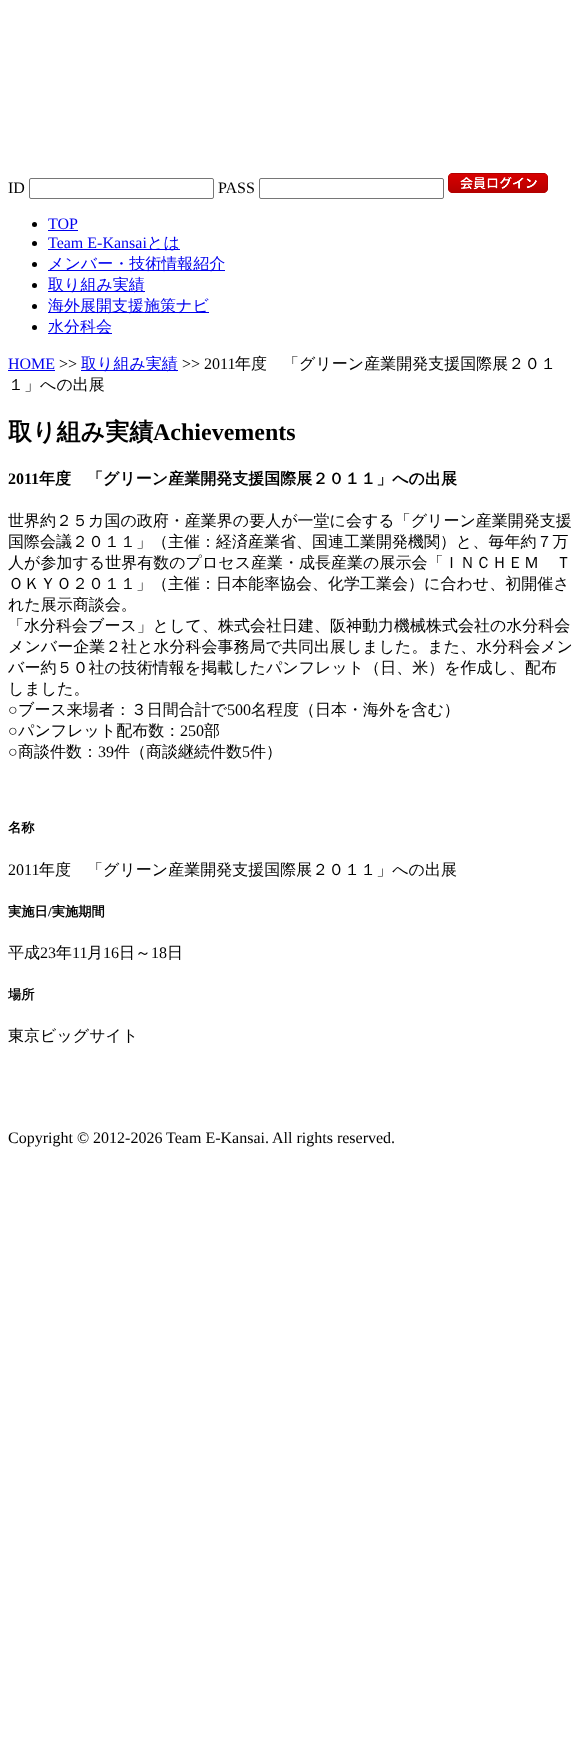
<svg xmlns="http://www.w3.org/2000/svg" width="581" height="1741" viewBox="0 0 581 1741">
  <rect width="100%" height="100%" fill="#fff"/>
  <rect x="29.5" y="178.5" width="184" height="20" rx="1.5" fill="none" stroke="#767676"/>
  <rect x="259.5" y="178.5" width="184" height="20" rx="1.5" fill="none" stroke="#767676"/>
  <image x="448" y="173" width="100" height="20" href="img/1.png"/>
  <circle cx="34.5" cy="224.5" r="2.5" fill="#000"/>
  <path d="M48 230h30v1H48z" fill="#00e"/>
  <circle cx="34.5" cy="243.5" r="2.5" fill="#000"/>
  <path d="M48 249h132v1H48z" fill="#00e"/>
  <circle cx="34.5" cy="264.5" r="2.5" fill="#000"/>
  <path d="M48 270h177v1H48z" fill="#00e"/>
  <circle cx="34.5" cy="285.5" r="2.5" fill="#000"/>
  <path d="M48 291h97v1H48z" fill="#00e"/>
  <circle cx="34.5" cy="306.5" r="2.5" fill="#000"/>
  <path d="M48 312h161v1H48z" fill="#00e"/>
  <circle cx="34.5" cy="327.5" r="2.5" fill="#000"/>
  <path d="M48 333h64v1H48z" fill="#00e"/>
  <path d="M8 370h47v1H8z" fill="#00e"/>
  <path d="M81 370h97v1H81z" fill="#00e"/>
  <g font-family="Liberation Serif" font-size="16" fill="#000">
    <text x="8" y="193">ID</text>
    <text x="218" y="193">PASS</text>
  </g>
  <g font-family="Liberation Serif" font-size="16" fill="#00e">
    <text x="48" y="229">TOP</text>
    <text x="48" y="248">Team E-Kansai</text>
  </g>
  <g font-family="WenQuanYi Zen Hei" font-size="16" font-weight="500" fill="#00e">
    <text x="147" y="248">とは</text>
    <text x="48" y="269">メンバー・技術情報紹介</text>
    <text x="48" y="290">取り組み実績</text>
    <text x="48" y="311">海外展開支援施策ナビ</text>
    <text x="48" y="332">水分科会</text>
  </g>
  <text x="8" y="369" font-family="Liberation Serif" font-size="16" fill="#00e">HOME</text>
  <text x="59" y="369" font-family="Liberation Serif" font-size="16" fill="#000">&gt;&gt;</text>
  <text x="81" y="369" font-family="WenQuanYi Zen Hei" font-size="16" font-weight="500" fill="#00e">取り組み実績</text>
  <text x="182" y="369" font-family="Liberation Serif" font-size="16" fill="#000">&gt;&gt; 2011</text>
  <g font-family="WenQuanYi Zen Hei" font-size="16" font-weight="500" fill="#000">
    <text x="235" y="369">年度　「グリーン産業開発支援国際展２０１</text>
    <text x="8" y="390">１」への出展</text>
  </g>
  <text x="8" y="440" font-family="WenQuanYi Zen Hei" font-size="24" font-weight="bold" fill="#000">取り組み実績</text>
  <text x="153" y="440" font-family="Liberation Serif" font-size="24" font-weight="bold" fill="#000">Achievements</text>
  <text x="8" y="484" font-family="Liberation Serif" font-size="16" font-weight="bold" fill="#000">2011</text>
  <text x="39" y="484" font-family="WenQuanYi Zen Hei" font-size="16" font-weight="bold" fill="#000">年度　「グリーン産業開発支援国際展２０１１」への出展</text>
  <g font-family="WenQuanYi Zen Hei" font-size="16" font-weight="500" fill="#000">
    <text x="8" y="526">世界約２５カ国の政府・産業界の要人が一堂に会する「グリーン産業開発支援</text>
    <text x="8" y="547">国際会議２０１１」（主催：経済産業省、国連工業開発機関）と、毎年約７万</text>
    <text x="8" y="568">人が参加する世界有数のプロセス産業・成長産業の展示会「ＩＮＣＨＥＭ　Ｔ</text>
    <text x="8" y="589">ＯＫＹＯ２０１１」（主催：日本能率協会、化学工業会）に合わせ、初開催さ</text>
    <text x="8" y="610">れた展示商談会。</text>
    <text x="8" y="631">「水分科会ブース」として、株式会社日建、阪神動力機械株式会社の水分科会</text>
    <text x="8" y="652">メンバー企業２社と水分科会事務局で共同出展しました。また、水分科会メン</text>
    <text x="8" y="673">バー約５０社の技術情報を掲載したパンフレット（日、米）を作成し、配布</text>
    <text x="8" y="694">しました。</text>
  </g>
  <text x="8" y="715" font-family="Liberation Serif" font-size="16" fill="#000">○</text>
  <text x="18" y="715" font-family="WenQuanYi Zen Hei" font-size="16" font-weight="500" fill="#000">ブース来場者：３日間合計で</text>
  <text x="227" y="715" font-family="Liberation Serif" font-size="16" fill="#000">500</text>
  <text x="251" y="715" font-family="WenQuanYi Zen Hei" font-size="16" font-weight="500" fill="#000">名程度（日本・海外を含む）</text>
  <text x="8" y="736" font-family="Liberation Serif" font-size="16" fill="#000">○</text>
  <text x="18" y="736" font-family="WenQuanYi Zen Hei" font-size="16" font-weight="500" fill="#000">パンフレット配布数：</text>
  <text x="180" y="736" font-family="Liberation Serif" font-size="16" fill="#000">250</text>
  <text x="204" y="736" font-family="WenQuanYi Zen Hei" font-size="16" font-weight="500" fill="#000">部</text>
  <text x="8" y="757" font-family="Liberation Serif" font-size="16" fill="#000">○</text>
  <text x="18" y="757" font-family="WenQuanYi Zen Hei" font-size="16" font-weight="500" fill="#000">商談件数：</text>
  <text x="98" y="757" font-family="Liberation Serif" font-size="16" fill="#000">39</text>
  <text x="114" y="757" font-family="WenQuanYi Zen Hei" font-size="16" font-weight="500" fill="#000">件（商談継続件数</text>
  <text x="242" y="757" font-family="Liberation Serif" font-size="16" fill="#000">5</text>
  <text x="250" y="757" font-family="WenQuanYi Zen Hei" font-size="16" font-weight="500" fill="#000">件）</text>
  <text x="8" y="832" font-family="WenQuanYi Zen Hei" font-size="13.25" font-weight="bold" fill="#000">名称</text>
  <text x="8" y="875" font-family="Liberation Serif" font-size="16" fill="#000">2011</text>
  <text x="39" y="875" font-family="WenQuanYi Zen Hei" font-size="16" font-weight="500" fill="#000">年度　「グリーン産業開発支援国際展２０１１」への出展</text>
  <text x="8" y="916" font-family="WenQuanYi Zen Hei" font-size="13.25" font-weight="bold" fill="#000">実施日 実施期間</text>
  <text x="48" y="916" font-family="Liberation Serif" font-size="13.25" font-weight="bold" fill="#000">/</text>
  <text x="8" y="958" font-family="WenQuanYi Zen Hei" font-size="16" font-weight="500" fill="#000">平成</text>
  <text x="40" y="958" font-family="Liberation Serif" font-size="16" fill="#000">23</text>
  <text x="56" y="958" font-family="WenQuanYi Zen Hei" font-size="16" font-weight="500" fill="#000">年</text>
  <text x="72" y="958" font-family="Liberation Serif" font-size="16" fill="#000">11</text>
  <text x="87" y="958" font-family="WenQuanYi Zen Hei" font-size="16" font-weight="500" fill="#000">月</text>
  <text x="103" y="958" font-family="Liberation Serif" font-size="16" fill="#000">16</text>
  <text x="119" y="958" font-family="WenQuanYi Zen Hei" font-size="16" font-weight="500" fill="#000">日～</text>
  <text x="151" y="958" font-family="Liberation Serif" font-size="16" fill="#000">18</text>
  <text x="167" y="958" font-family="WenQuanYi Zen Hei" font-size="16" font-weight="500" fill="#000">日</text>
  <text x="8" y="999" font-family="WenQuanYi Zen Hei" font-size="13.25" font-weight="bold" fill="#000">場所</text>
  <text x="8" y="1041" font-family="WenQuanYi Zen Hei" font-size="16" font-weight="500" fill="#000">東京ビッグサイト</text>
  <text x="8" y="1143" font-family="Liberation Serif" font-size="16" fill="#000">Copyright © 2012-2026 Team E-Kansai. All rights reserved.</text>
</svg>
